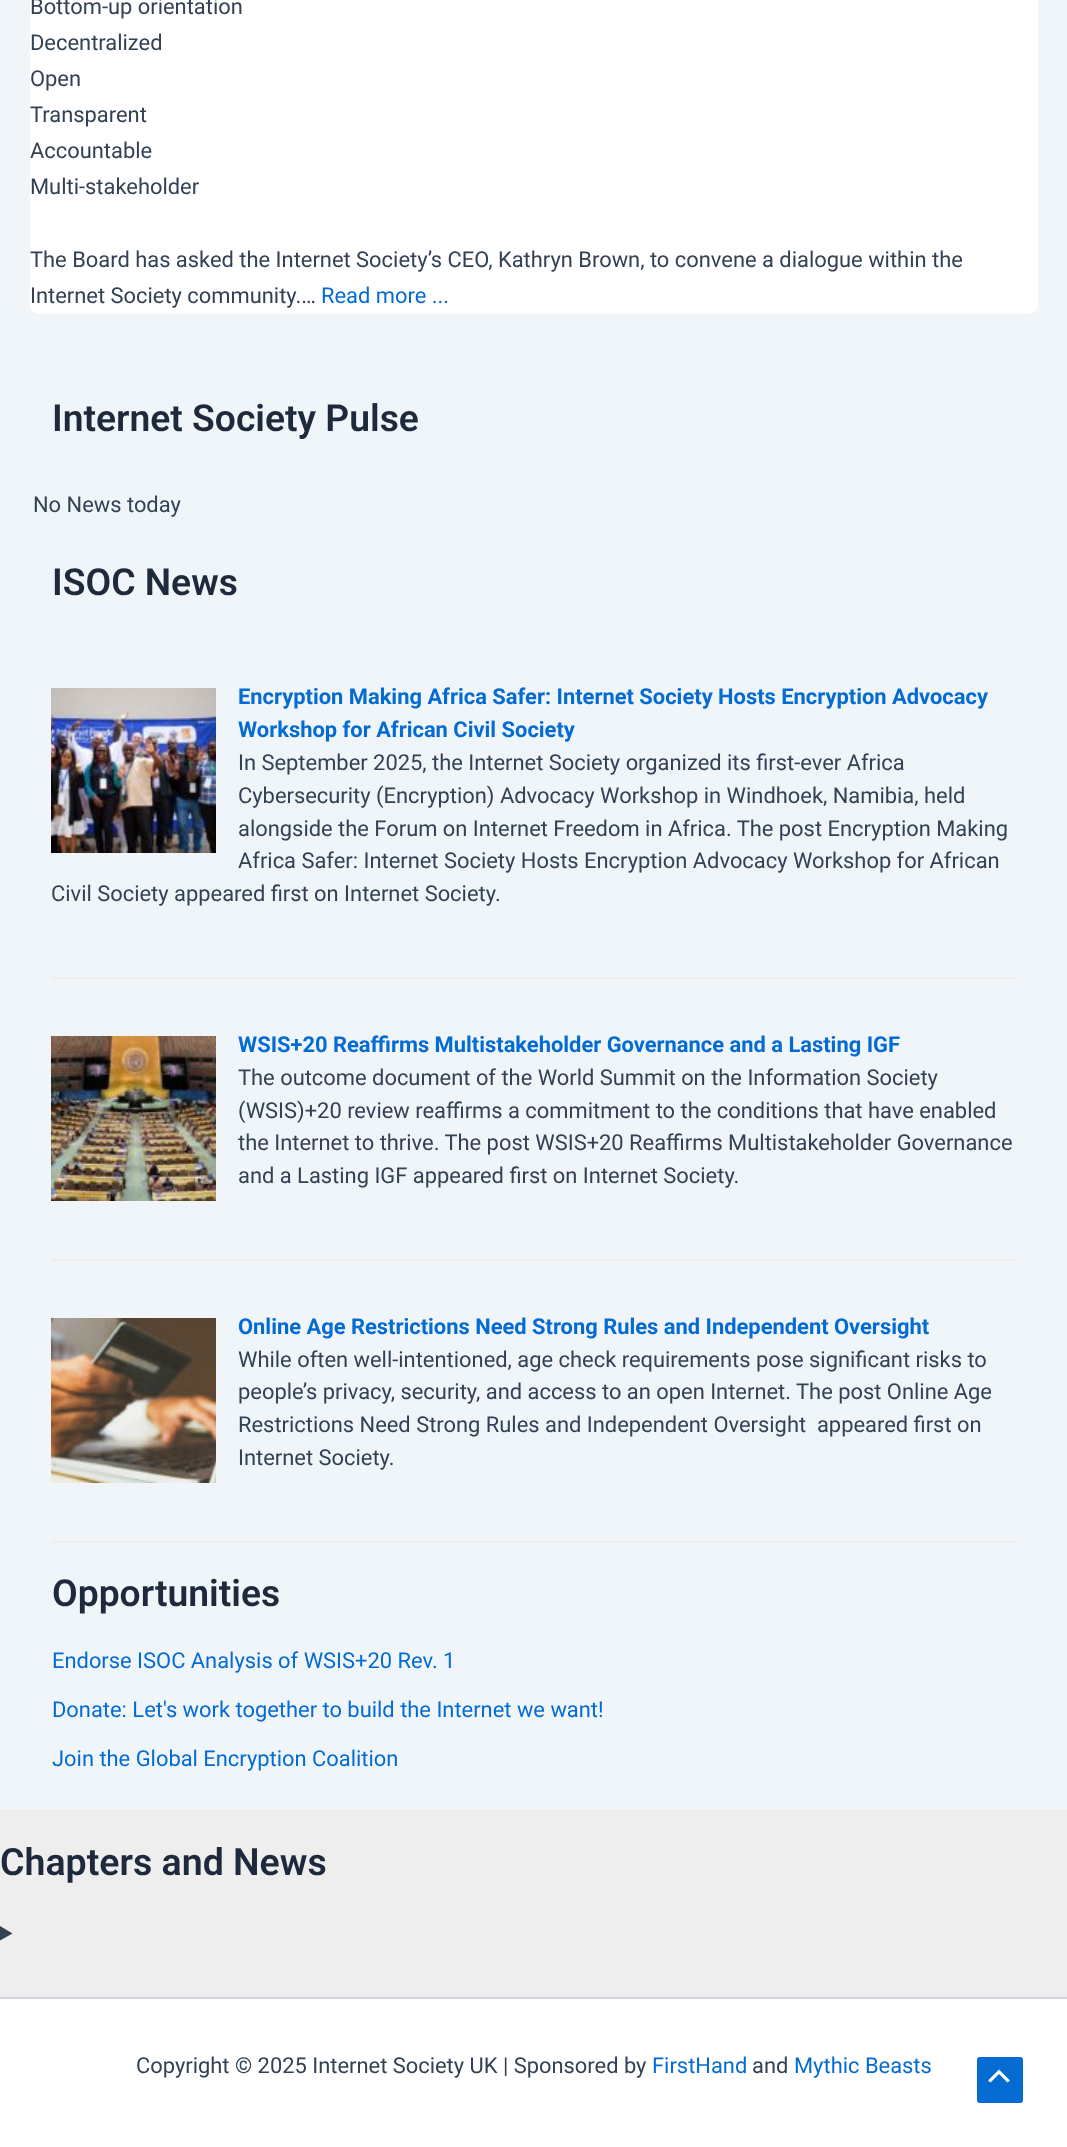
<svg xmlns="http://www.w3.org/2000/svg" width="1067" height="2147" viewBox="0 0 1067 2147">
  <rect width="100%" height="100%" fill="#f0f5fa"/>
  <rect x="30" y="-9" width="1008" height="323" rx="9" fill="#fff"/>
  <path d="M51 977h966v2H51z" fill="#eee"/>
  <image x="51" y="688" width="165" height="165" href="img/1.png"/>
  <path d="M51 1259h966v2H51z" fill="#eee"/>
  <image x="51" y="1036" width="165" height="165" href="img/2.png"/>
  <path d="M51 1541h966v2H51z" fill="#eee"/>
  <image x="51" y="1318" width="165" height="165" href="img/3.png"/>
  <path d="M0 1809h1067v188H0z" fill="#eee"/>
  <path d="M0 1926L12.5 1933.5L0 1940.5Z" fill="#334155"/>
  <path d="M0 1999h1067v148H0z" fill="#fff"/>
  <path d="M0 1997h1067v2H0z" fill="#d1d5db"/>
  <rect x="977" y="2057" width="46" height="46" rx="3" fill="#046bd2"/>
  <path d="M1010 2080.5L999 2069.5L988 2080.5L990.5 2082.5L999 2074L1007.5 2082.5Z" fill="#fff"/>
  <g font-family="Roboto" font-size="21.9" fill="#334155">
    <text x="30" y="14">Bottom-up orientation</text>
    <text x="30" y="50">Decentralized</text>
    <text x="30" y="86">Open</text>
    <text x="30" y="122">Transparent</text>
    <text x="30" y="158">Accountable</text>
    <text x="30" y="194">Multi-stakeholder</text>
    <text x="30" y="267">The Board has asked the Internet Society’s CEO, Kathryn Brown, to convene a dialogue within the</text>
    <text x="30" y="303">Internet Society community.…</text>
  </g>
  <text x="321" y="303" font-family="Roboto" font-size="21.9" fill="#046bd2">Read more ...</text>
  <text x="52" y="431" font-family="Roboto" font-size="37.25" font-weight="600" fill="#1e293b">Internet Society Pulse</text>
  <text x="33" y="512" font-family="Roboto" font-size="21.9" fill="#334155">No News today</text>
  <text x="52" y="595" font-family="Roboto" font-size="37.25" font-weight="600" fill="#1e293b">ISOC News</text>
  <g font-family="Roboto" font-size="21.9" font-weight="bold" fill="#046bd2">
    <text x="238" y="704">Encryption Making Africa Safer: Internet Society Hosts Encryption Advocacy</text>
    <text x="238" y="737">Workshop for African Civil Society</text>
  </g>
  <g font-family="Roboto" font-size="21.9" fill="#334155">
    <text x="238" y="770">In September 2025, the Internet Society organized its first-ever Africa</text>
    <text x="238" y="803">Cybersecurity (Encryption) Advocacy Workshop in Windhoek, Namibia, held</text>
    <text x="238" y="836">alongside the Forum on Internet Freedom in Africa. The post Encryption Making</text>
    <text x="238" y="868">Africa Safer: Internet Society Hosts Encryption Advocacy Workshop for African</text>
    <text x="51" y="901">Civil Society appeared first on Internet Society.</text>
  </g>
  <text x="238" y="1052" font-family="Roboto" font-size="21.9" font-weight="bold" fill="#046bd2">WSIS+20 Reaffirms Multistakeholder Governance and a Lasting IGF</text>
  <g font-family="Roboto" font-size="21.9" fill="#334155">
    <text x="238" y="1085">The outcome document of the World Summit on the Information Society</text>
    <text x="238" y="1118">(WSIS)+20 review reaffirms a commitment to the conditions that have enabled</text>
    <text x="238" y="1150">the Internet to thrive. The post WSIS+20 Reaffirms Multistakeholder Governance</text>
    <text x="238" y="1183">and a Lasting IGF appeared first on Internet Society.</text>
  </g>
  <text x="238" y="1334" font-family="Roboto" font-size="21.9" font-weight="bold" fill="#046bd2">Online Age Restrictions Need Strong Rules and Independent Oversight</text>
  <g font-family="Roboto" font-size="21.9" fill="#334155">
    <text x="238" y="1367">While often well-intentioned, age check requirements pose significant risks to</text>
    <text x="238" y="1399">people’s privacy, security, and access to an open Internet. The post Online Age</text>
    <text x="238" y="1432" xml:space="preserve">Restrictions Need Strong Rules and Independent Oversight  appeared first on</text>
    <text x="238" y="1465">Internet Society.</text>
  </g>
  <text x="52" y="1606" font-family="Roboto" font-size="37.25" font-weight="600" fill="#1e293b">Opportunities</text>
  <g font-family="Roboto" font-size="21.9" fill="#046bd2">
    <text x="52" y="1668">Endorse ISOC Analysis of WSIS+20 Rev. 1</text>
    <text x="52" y="1717">Donate: Let's work together to build the Internet we want!</text>
    <text x="52" y="1766">Join the Global Encryption Coalition</text>
  </g>
  <text x="0" y="1875" font-family="Roboto" font-size="37.5" font-weight="600" fill="#1e293b">Chapters and News</text>
  <text x="136" y="2073" font-family="Roboto" font-size="21.9" fill="#334155">Copyright © 2025 Internet Society UK | Sponsored by</text>
  <text x="652" y="2073" font-family="Roboto" font-size="21.9" fill="#046bd2">FirstHand</text>
  <text x="752" y="2073" font-family="Roboto" font-size="21.9" fill="#334155">and</text>
  <text x="794" y="2073" font-family="Roboto" font-size="21.9" fill="#046bd2">Mythic Beasts</text>
</svg>
